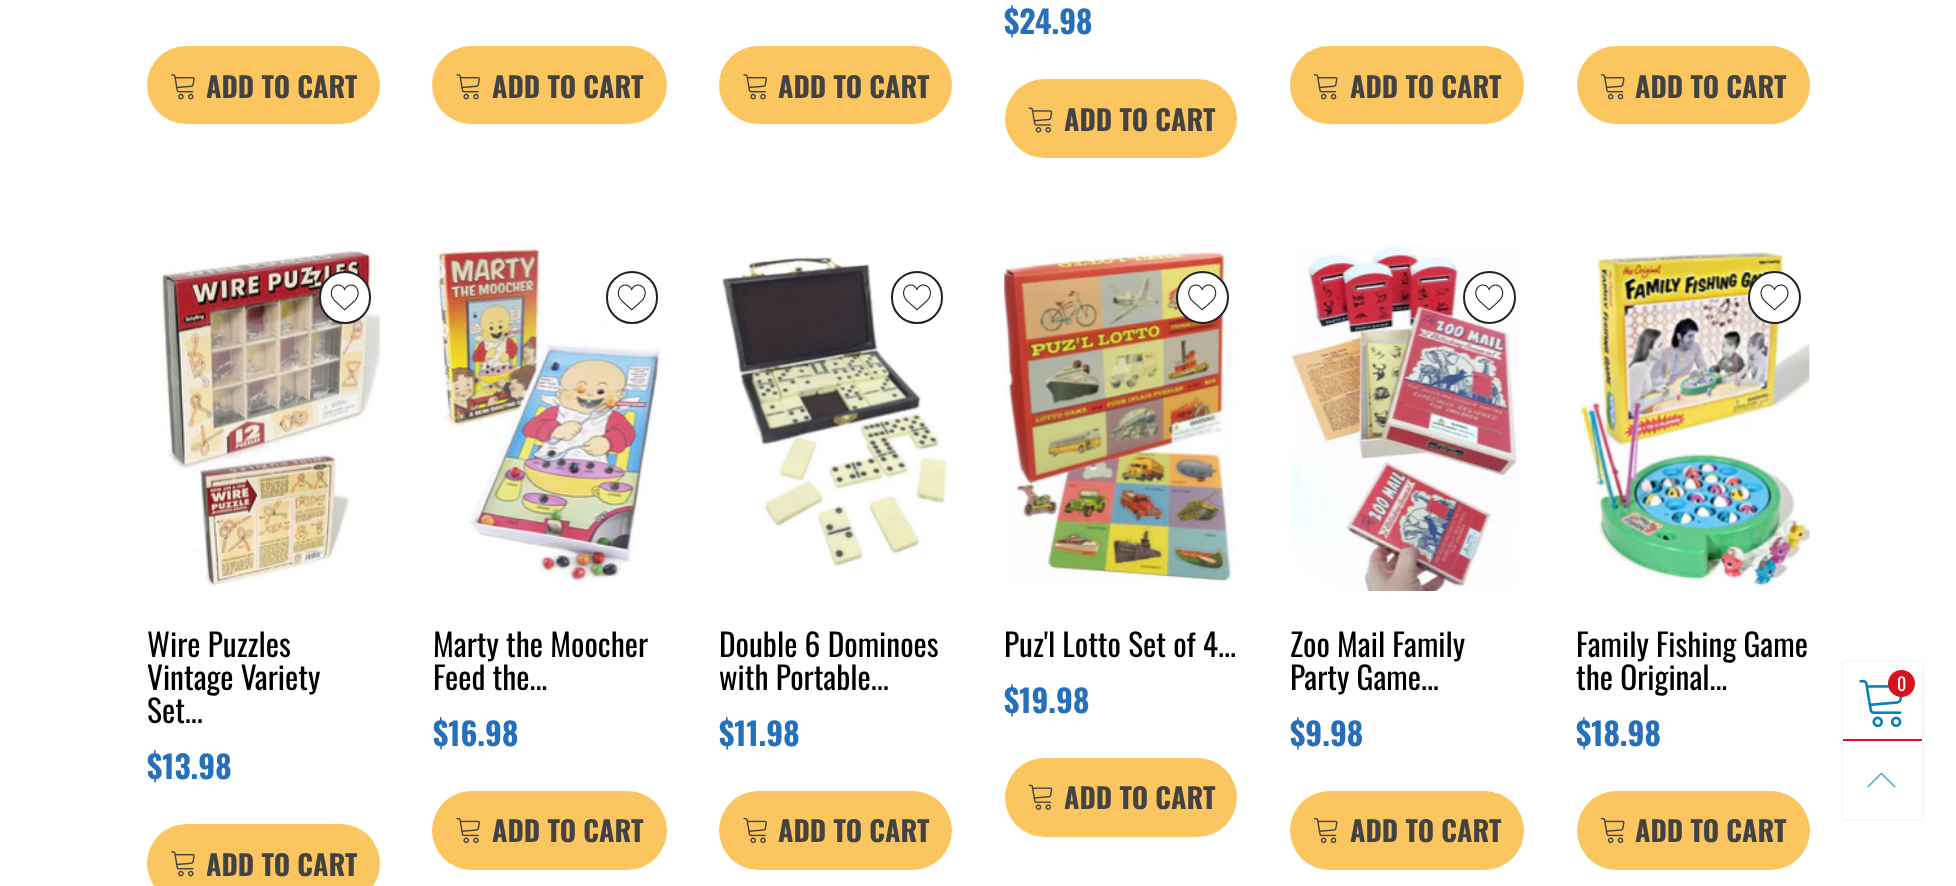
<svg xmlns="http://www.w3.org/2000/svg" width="1956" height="886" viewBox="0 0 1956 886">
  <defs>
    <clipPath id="clip1"><path d="M207 47h150v77H207z"/></clipPath>
    <clipPath id="clip2"><path d="M207 824h150v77H207z"/></clipPath>
  </defs>
  <rect width="100%" height="100%" fill="#fff"/>
  <rect x="147" y="46" width="233" height="78" rx="39" fill="#fbc660"/>
  <image x="171" y="74" width="24" height="26" href="img/1.png"/>
  <rect x="432" y="46" width="235" height="78" rx="39" fill="#fbc660"/>
  <image x="456" y="74" width="24" height="26" href="img/2.png"/>
  <rect x="719" y="46" width="233" height="78" rx="39" fill="#fbc660"/>
  <image x="743" y="74" width="24" height="26" href="img/2.png"/>
  <rect x="1005" y="79" width="232" height="79" rx="39.5" fill="#fbc660"/>
  <image x="1028" y="107" width="25" height="26" href="img/3.png"/>
  <rect x="1290" y="46" width="234" height="78" rx="39" fill="#fbc660"/>
  <image x="1313" y="74" width="25" height="26" href="img/4.png"/>
  <rect x="1577" y="46" width="233" height="78" rx="39" fill="#fbc660"/>
  <image x="1600" y="74" width="25" height="26" href="img/4.png"/>
  <image x="159" y="245" width="221" height="341" href="img/5.png"/>
  <rect x="320" y="272" width="50" height="51" rx="25" fill="#fff" stroke="#222" stroke-width="2"/>
  <image x="330" y="284" width="29" height="27" href="img/6.png"/>
  <rect x="147" y="824" width="233" height="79" rx="39.5" fill="#fbc660"/>
  <image x="171" y="851" width="24" height="26" href="img/1.png"/>
  <image x="432" y="245" width="230" height="339" href="img/7.png"/>
  <rect x="607" y="272" width="50" height="51" rx="25" fill="none" stroke="#222" stroke-width="2"/>
  <image x="617" y="284" width="29" height="27" href="img/6.png"/>
  <rect x="432" y="791" width="235" height="79" rx="39.5" fill="#fbc660"/>
  <image x="456" y="817" width="24" height="27" href="img/8.png"/>
  <image x="722" y="255" width="226" height="312" href="img/9.png"/>
  <rect x="892" y="272" width="50" height="51" rx="25" fill="none" stroke="#222" stroke-width="2"/>
  <image x="903" y="284" width="28" height="27" href="img/10.png"/>
  <rect x="719" y="791" width="233" height="79" rx="39.5" fill="#fbc660"/>
  <image x="743" y="817" width="24" height="27" href="img/8.png"/>
  <image x="1004" y="250" width="233" height="333" href="img/11.png"/>
  <circle cx="1202.5" cy="297.5" r="25.5" fill="#fff" stroke="#222" stroke-width="2"/>
  <image x="1188" y="284" width="29" height="27" href="img/12.png"/>
  <rect x="1005" y="758" width="232" height="79" rx="39.5" fill="#fbc660"/>
  <image x="1028" y="784" width="25" height="26" href="img/13.png"/>
  <image x="1290" y="245" width="229" height="346" href="img/14.png"/>
  <circle cx="1489.5" cy="297.5" r="25.5" fill="#fff" stroke="#222" stroke-width="2"/>
  <image x="1475" y="284" width="29" height="27" href="img/12.png"/>
  <rect x="1290" y="791" width="234" height="79" rx="39.5" fill="#fbc660"/>
  <image x="1313" y="817" width="25" height="27" href="img/15.png"/>
  <image x="1578" y="245" width="232" height="343" href="img/16.png"/>
  <circle cx="1774.5" cy="297.5" r="25.5" fill="#fff" stroke="#222" stroke-width="2"/>
  <image x="1760" y="284" width="29" height="27" href="img/17.png"/>
  <rect x="1577" y="791" width="233" height="79" rx="39.5" fill="#fbc660"/>
  <image x="1600" y="817" width="25" height="27" href="img/15.png"/>
  <path d="M1843 662h79v157H1843z" fill="#266fba26" filter="blur(2.5px)"/>
  <path d="M1843 662h79v157H1843z" fill="#fff"/>
  <path d="M1843 739h79v2H1843z" fill="#d9121f"/>
  <image x="1859" y="679" width="44" height="49" href="img/18.png"/>
  <circle cx="1901.5" cy="683.5" r="13.5" fill="#d9121f"/>
  <image x="1867" y="772" width="29" height="16" href="img/19.png"/>
  <g clip-path="url(#clip1)">
    <text x="206" y="98" font-family="Oswald" font-size="28" font-weight="bold" fill="#424242">ADD TO CART</text>
  </g>
  <g font-family="Oswald" font-size="28" font-weight="bold" fill="#424242">
    <text x="492" y="98">ADD TO CART</text>
    <text x="778" y="98">ADD TO CART</text>
  </g>
  <text x="1004" y="34" font-family="Oswald" font-size="31.5" font-weight="bold" fill="#266fba">$24.98</text>
  <g font-family="Oswald" font-size="28" font-weight="bold" fill="#424242">
    <text x="1064" y="131">ADD TO CART</text>
    <text x="1350" y="98">ADD TO CART</text>
    <text x="1635" y="98">ADD TO CART</text>
  </g>
  <g font-family="Oswald" font-size="31.5" fill="#000">
    <text x="147" y="657">Wire Puzzles</text>
    <text x="147" y="690">Vintage Variety</text>
    <text x="147" y="723">Set...</text>
  </g>
  <text x="147" y="779" font-family="Oswald" font-size="31.5" font-weight="bold" fill="#266fba">$13.98</text>
  <g clip-path="url(#clip2)">
    <text x="206" y="876" font-family="Oswald" font-size="28" font-weight="bold" fill="#424242">ADD TO CART</text>
  </g>
  <g font-family="Oswald" font-size="31.5" fill="#000">
    <text x="433" y="657">Marty the Moocher</text>
    <text x="433" y="690">Feed the...</text>
  </g>
  <text x="433" y="746" font-family="Oswald" font-size="31.5" font-weight="bold" fill="#266fba">$16.98</text>
  <text x="492" y="842" font-family="Oswald" font-size="28" font-weight="bold" fill="#424242">ADD TO CART</text>
  <g font-family="Oswald" font-size="31.5" fill="#000">
    <text x="719" y="657">Double 6 Dominoes</text>
    <text x="719" y="690">with Portable...</text>
  </g>
  <text x="719" y="746" font-family="Oswald" font-size="31.5" font-weight="bold" fill="#266fba">$11.98</text>
  <text x="778" y="842" font-family="Oswald" font-size="28" font-weight="bold" fill="#424242">ADD TO CART</text>
  <text x="1004" y="657" font-family="Oswald" font-size="31.5" fill="#000">Puz'l Lotto Set of 4...</text>
  <text x="1004" y="713" font-family="Oswald" font-size="31.5" font-weight="bold" fill="#266fba">$19.98</text>
  <text x="1064" y="809" font-family="Oswald" font-size="28" font-weight="bold" fill="#424242">ADD TO CART</text>
  <g font-family="Oswald" font-size="31.5" fill="#000">
    <text x="1290" y="657">Zoo Mail Family</text>
    <text x="1290" y="690">Party Game...</text>
  </g>
  <text x="1290" y="746" font-family="Oswald" font-size="31.5" font-weight="bold" fill="#266fba">$9.98</text>
  <text x="1350" y="842" font-family="Oswald" font-size="28" font-weight="bold" fill="#424242">ADD TO CART</text>
  <g font-family="Oswald" font-size="31.5" fill="#000">
    <text x="1576" y="657">Family Fishing Game</text>
    <text x="1576" y="690">the Original...</text>
  </g>
  <text x="1576" y="746" font-family="Oswald" font-size="31.5" font-weight="bold" fill="#266fba">$18.98</text>
  <text x="1635" y="842" font-family="Oswald" font-size="28" font-weight="bold" fill="#424242">ADD TO CART</text>
  <text x="1897" y="691" font-family="Oswald" font-size="18" fill="#fff">0</text>
</svg>
